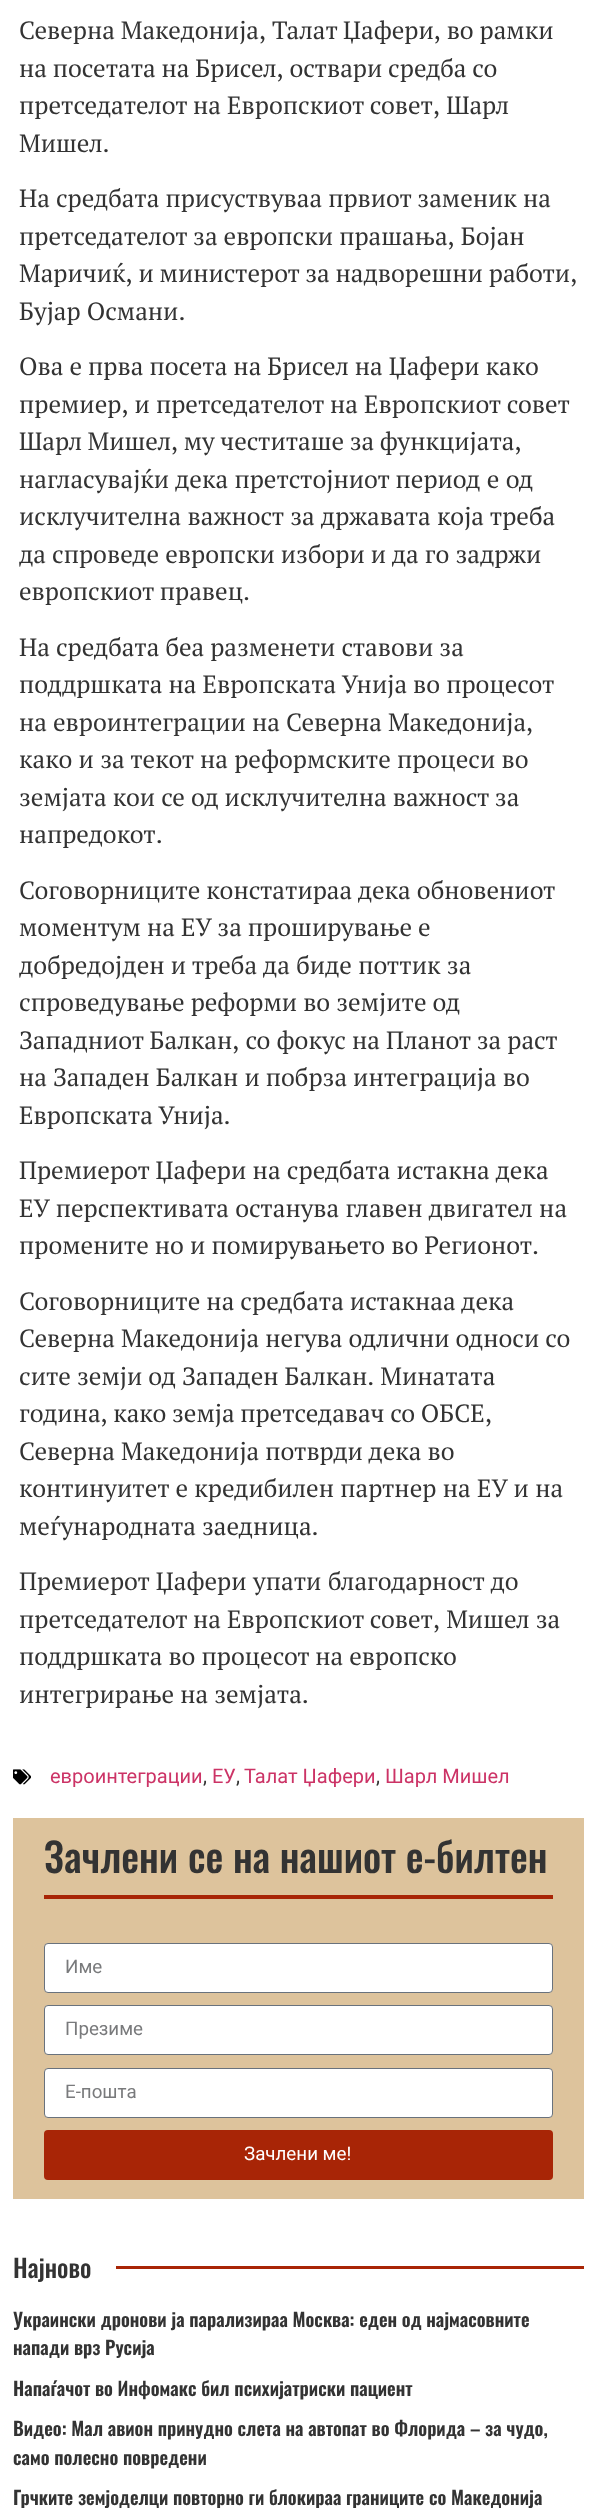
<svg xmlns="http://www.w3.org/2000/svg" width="596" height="2508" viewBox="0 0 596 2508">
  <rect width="100%" height="100%" fill="#fff"/>
  <image x="13" y="1769" width="18" height="16" href="img/1.png"/>
  <path d="M13 1818h571v381H13z" fill="#ddc39c"/>
  <path d="M44 1895h509v4H44z" fill="#a82506"/>
  <rect x="44.5" y="1943.5" width="508" height="49" rx="3.5" fill="#fff" stroke="#69727d"/>
  <rect x="44.5" y="2005.5" width="508" height="49" rx="3.5" fill="#fff" stroke="#69727d"/>
  <rect x="44.5" y="2068.5" width="508" height="49" rx="3.5" fill="#fff" stroke="#69727d"/>
  <rect x="44" y="2130" width="509" height="50" rx="4" fill="#a82506"/>
  <path d="M116 2266h468v3H116z" fill="#a82506"/>
  <g font-family="PT Serif" font-size="25" fill="#333">
    <text x="19" y="39" word-spacing="-0.25">Северна Македонија, Талат Џафери, во рамки</text>
    <text x="19" y="77" word-spacing="-0.25">на посетата на Брисел, оствари средба со</text>
    <text x="19" y="114">претседателот на Европскиот совет, Шарл</text>
    <text x="19" y="152">Мишел.</text>
    <text x="19" y="207">На средбата присуствуваа првиот заменик на</text>
    <text x="19" y="245">претседателот за европски прашања, Бојан</text>
    <text x="19" y="282" word-spacing="-0.25">Маричиќ, и министерот за надворешни работи,</text>
    <text x="19" y="320">Бујар Османи.</text>
    <text x="19" y="375">Ова е прва посета на Брисел на Џафери како</text>
    <text x="19" y="413">премиер, и претседателот на Европскиот совет</text>
    <text x="19" y="450" word-spacing="-0.5">Шарл Мишел, му честиташе за функцијата,</text>
    <text x="19" y="488" word-spacing="0.25">нагласувајќи дека претстојниот период е од</text>
    <text x="19" y="525" word-spacing="0.5">исклучителна важност за државата која треба</text>
    <text x="19" y="563">да спроведе европски избори и да го задржи</text>
    <text x="19" y="600">европскиот правец.</text>
    <text x="19" y="656">На средбата беа разменети ставови за</text>
    <text x="19" y="693">поддршката на Европската Унија во процесот</text>
    <text x="19" y="731">на евроинтеграции на Северна Македонија,</text>
    <text x="19" y="768" word-spacing="0.25">како и за текот на реформските процеси во</text>
    <text x="19" y="806">земјата кои се од исклучителна важност за</text>
    <text x="19" y="843">напредокот.</text>
    <text x="19" y="899">Соговорниците констатираа дека обновениот</text>
    <text x="19" y="936">моментум на ЕУ за проширување е</text>
    <text x="19" y="974" word-spacing="0.25">добредојден и треба да биде поттик за</text>
    <text x="19" y="1011">спроведување реформи во земјите од</text>
    <text x="19" y="1049">Западниот Балкан, со фокус на Планот за раст</text>
    <text x="19" y="1086">на Западен Балкан и побрза интеграција во</text>
    <text x="19" y="1124">Европската Унија.</text>
    <text x="19" y="1179" word-spacing="0.25">Премиерот Џафери на средбата истакна дека</text>
    <text x="19" y="1217" word-spacing="0.25">ЕУ перспективата останува главен двигател на</text>
    <text x="19" y="1254">промените но и помирувањето во Регионот.</text>
    <text x="19" y="1310">Соговорниците на средбата истакнаа дека</text>
    <text x="19" y="1347">Северна Македонија негува одлични односи со</text>
    <text x="19" y="1385">сите земји од Западен Балкан. Минатата</text>
    <text x="19" y="1422" word-spacing="-0.5">година, како земја претседавач со ОБСЕ,</text>
    <text x="19" y="1460">Северна Македонија потврди дека во</text>
    <text x="19" y="1497" word-spacing="0.25">континуитет е кредибилен партнер на ЕУ и на</text>
    <text x="19" y="1535">меѓународната заедница.</text>
    <text x="19" y="1590" word-spacing="0.5">Премиерот Џафери упати благодарност до</text>
    <text x="19" y="1628">претседателот на Европскиот совет, Мишел за</text>
    <text x="19" y="1665">поддршката во процесот на европско</text>
    <text x="19" y="1703">интегрирање на земјата.</text>
  </g>
  <text x="50" y="1783" font-family="Roboto" font-size="20" fill="#c36">евроинтеграции</text>
  <text x="203" y="1783" font-family="Roboto" font-size="20" fill="#333">,</text>
  <text x="212" y="1783" font-family="Roboto" font-size="20" fill="#c36">ЕУ</text>
  <text x="236" y="1783" font-family="Roboto" font-size="20" fill="#333">,</text>
  <text x="244" y="1783" font-family="Roboto" font-size="20" fill="#c36">Талат Џафери</text>
  <text x="376" y="1783" font-family="Roboto" font-size="20" fill="#333">,</text>
  <text x="385" y="1783" font-family="Roboto" font-size="20" fill="#c36">Шарл Мишел</text>
  <text x="44" y="1873" font-family="Oswald" font-size="40" font-weight="500" fill="#333">Зачлени се на нашиот е-билтен</text>
  <g font-family="Roboto" font-size="18.75" fill="#797a7c">
    <text x="65" y="1973">Име</text>
    <text x="65" y="2035">Презиме</text>
    <text x="65" y="2098">Е-пошта</text>
  </g>
  <text x="244" y="2160" font-family="Roboto" font-size="18.75" fill="#fff">Зачлени ме!</text>
  <text x="13" y="2278" font-family="Oswald" font-size="25" font-weight="500" fill="#333">Најново</text>
  <g font-family="Oswald" font-size="18.75" font-weight="600" fill="#333">
    <text x="13" y="2327">Украински дронови ја парализираа Москва: еден од најмасовните</text>
    <text x="13" y="2355">напади врз Русија</text>
    <text x="13" y="2396">Напаѓачот во Инфомакс бил психијатриски пациент</text>
    <text x="13" y="2436">Видео: Мал авион принудно слета на автопат во Флорида – за чудо,</text>
    <text x="13" y="2465">само полесно повредени</text>
    <text x="13" y="2505">Грчките земјоделци повторно ги блокираа границите со Македонија</text>
  </g>
</svg>
